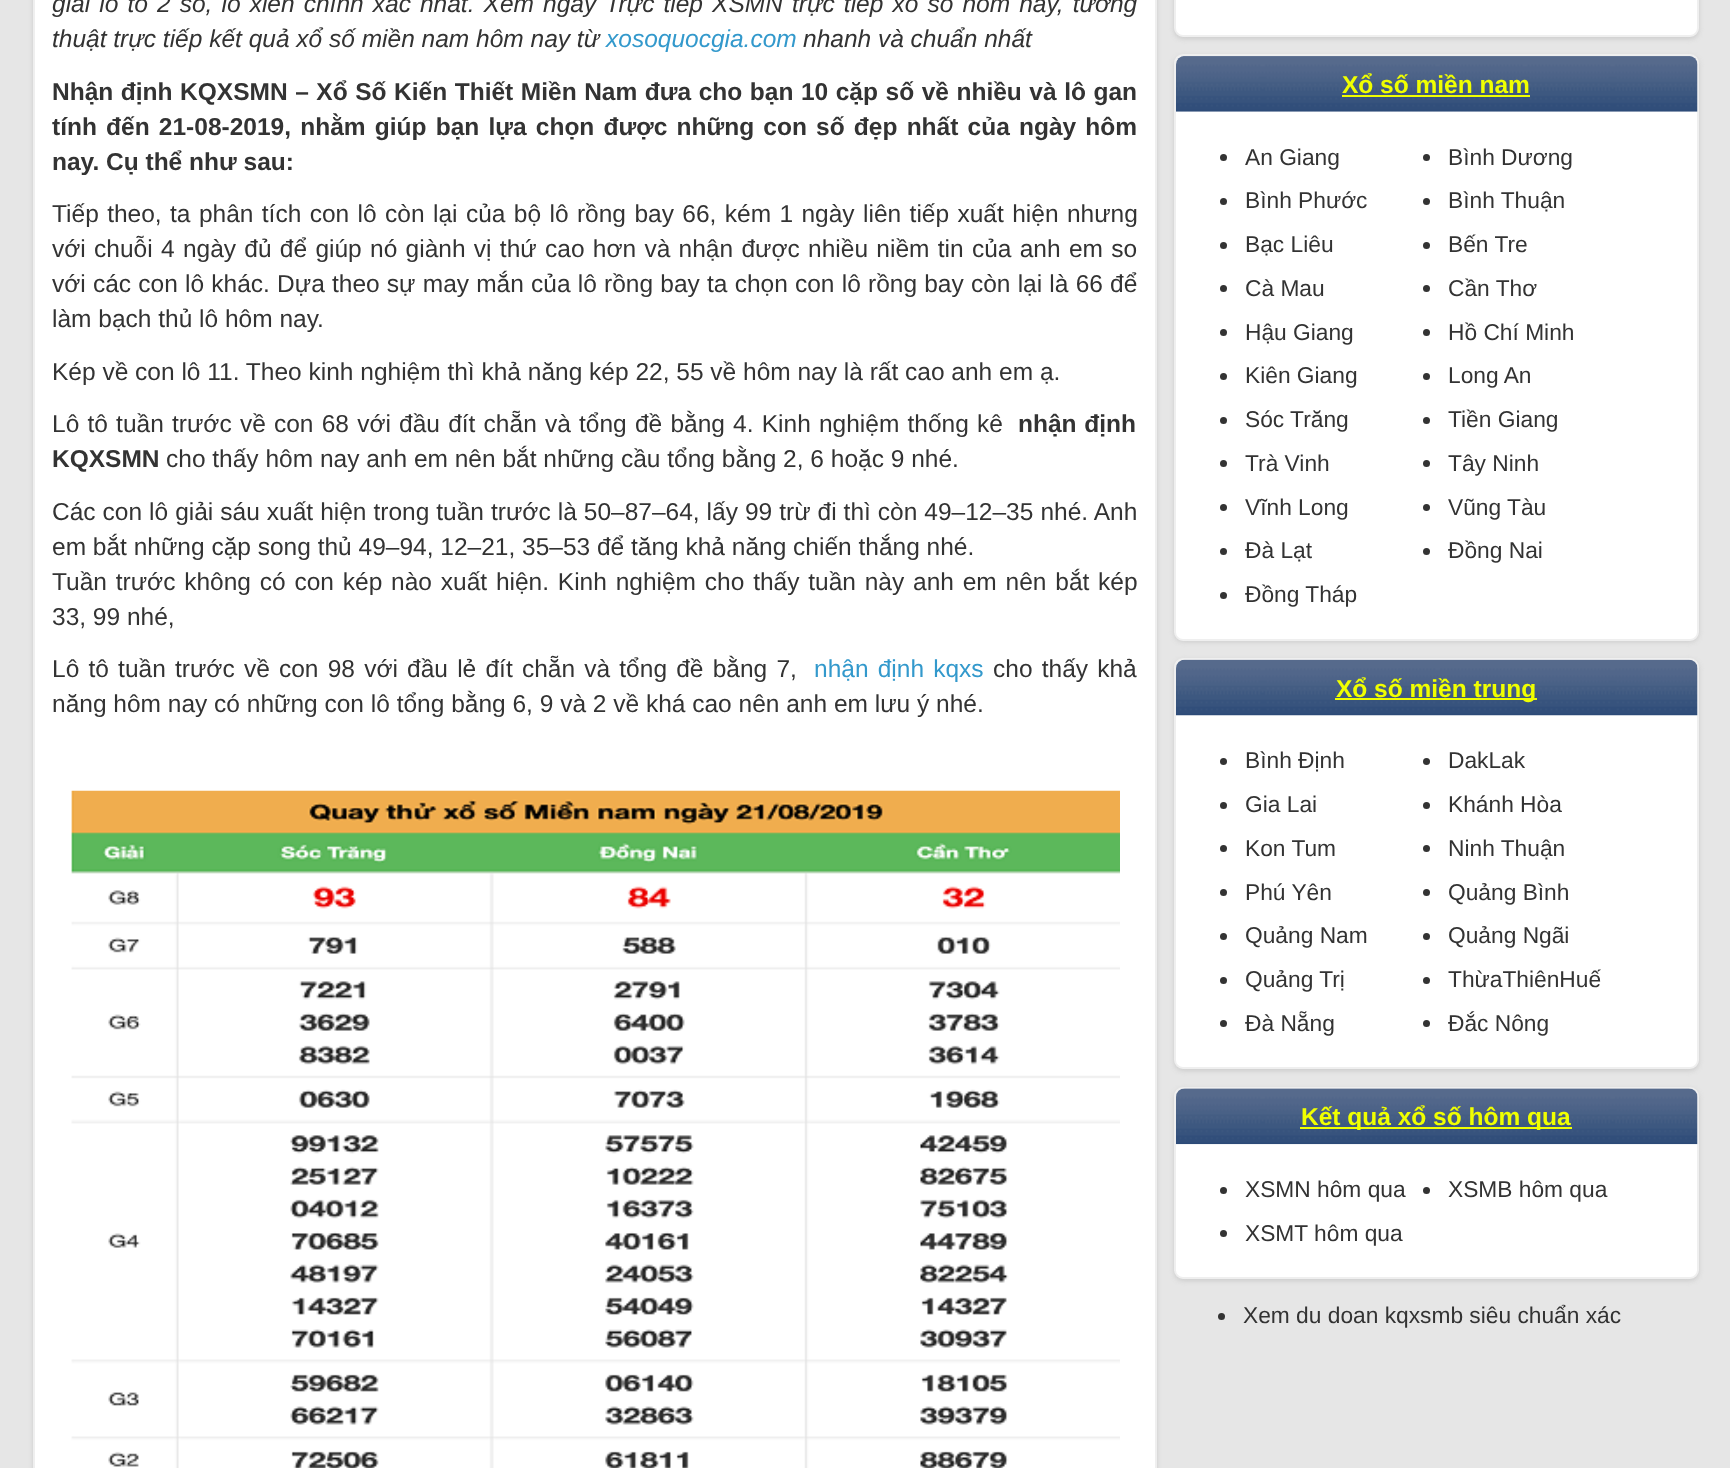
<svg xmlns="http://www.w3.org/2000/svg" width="1730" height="1468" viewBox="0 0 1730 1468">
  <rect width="100%" height="100%" fill="#e6e6e6"/>
  <rect x="33" y="-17" width="1124" height="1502" rx="9" fill="#ccc" filter="blur(2.5px)"/>
  <path d="M34 -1h1122v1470H34z" fill="#fff" stroke="#efefef" stroke-width="2"/>
  <image x="71" y="790" width="1049" height="678" href="img/1.png"/>
  <rect x="1174" y="-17" width="525" height="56" rx="9" fill="#ccc" filter="blur(2.5px)"/>
  <rect x="1175" y="-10" width="523" height="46" rx="8" fill="#fff" stroke="#efefef" stroke-width="2"/>
  <rect x="1174" y="56" width="525" height="586" rx="9" fill="#ccc" filter="blur(2.5px)"/>
  <rect x="1175" y="55" width="523" height="585" rx="8" fill="#fff" stroke="#efefef" stroke-width="2"/>
  <image x="1176" y="56" width="522" height="56" href="img/2.png"/>
  <path d="M1342 95h188v2H1342z" fill="#f0ff00"/>
  <circle cx="1223.5" cy="157.5" r="3.5" fill="#333"/>
  <circle cx="1426.5" cy="157.5" r="3.5" fill="#333"/>
  <circle cx="1223.5" cy="201.5" r="3.5" fill="#333"/>
  <circle cx="1426.5" cy="201.5" r="3.5" fill="#333"/>
  <circle cx="1223.5" cy="245.5" r="3.5" fill="#333"/>
  <circle cx="1426.5" cy="245.5" r="3.5" fill="#333"/>
  <circle cx="1223.5" cy="288.5" r="3.5" fill="#333"/>
  <circle cx="1426.5" cy="288.5" r="3.5" fill="#333"/>
  <circle cx="1223.5" cy="332.5" r="3.5" fill="#333"/>
  <circle cx="1426.5" cy="332.5" r="3.5" fill="#333"/>
  <circle cx="1223.5" cy="376.5" r="3.5" fill="#333"/>
  <circle cx="1426.5" cy="376.5" r="3.5" fill="#333"/>
  <circle cx="1223.5" cy="420.5" r="3.5" fill="#333"/>
  <circle cx="1426.5" cy="420.5" r="3.5" fill="#333"/>
  <circle cx="1223.5" cy="463.5" r="3.5" fill="#333"/>
  <circle cx="1426.5" cy="463.5" r="3.5" fill="#333"/>
  <circle cx="1223.5" cy="507.5" r="3.5" fill="#333"/>
  <circle cx="1426.5" cy="507.5" r="3.5" fill="#333"/>
  <circle cx="1223.5" cy="551.5" r="3.5" fill="#333"/>
  <circle cx="1426.5" cy="551.5" r="3.5" fill="#333"/>
  <circle cx="1223.5" cy="595.5" r="3.5" fill="#333"/>
  <rect x="1174" y="660" width="525" height="411" rx="9" fill="#ccc" filter="blur(2.5px)"/>
  <rect x="1175" y="659" width="523" height="409" rx="8" fill="#fff" stroke="#efefef" stroke-width="2"/>
  <image x="1176" y="659" width="522" height="57" href="img/3.png"/>
  <path d="M1335 698h202v2H1335z" fill="#f0ff00"/>
  <circle cx="1223.5" cy="761.5" r="3.5" fill="#333"/>
  <circle cx="1426.5" cy="761.5" r="3.5" fill="#333"/>
  <circle cx="1223.5" cy="805.5" r="3.5" fill="#333"/>
  <circle cx="1426.5" cy="805.5" r="3.5" fill="#333"/>
  <circle cx="1223.5" cy="848.5" r="3.5" fill="#333"/>
  <circle cx="1426.5" cy="848.5" r="3.5" fill="#333"/>
  <circle cx="1223.5" cy="892.5" r="3.5" fill="#333"/>
  <circle cx="1426.5" cy="892.5" r="3.5" fill="#333"/>
  <circle cx="1223.5" cy="936.5" r="3.5" fill="#333"/>
  <circle cx="1426.5" cy="936.5" r="3.5" fill="#333"/>
  <circle cx="1223.5" cy="980.5" r="3.5" fill="#333"/>
  <circle cx="1426.5" cy="980.5" r="3.5" fill="#333"/>
  <circle cx="1223.5" cy="1023.5" r="3.5" fill="#333"/>
  <circle cx="1426.5" cy="1023.5" r="3.5" fill="#333"/>
  <rect x="1174" y="1089" width="525" height="192" rx="9" fill="#ccc" filter="blur(2.5px)"/>
  <rect x="1175" y="1088" width="523" height="190" rx="8" fill="#fff" stroke="#efefef" stroke-width="2"/>
  <image x="1176" y="1088" width="522" height="57" href="img/4.png"/>
  <path d="M1300 1127h272v2H1300z" fill="#f0ff00"/>
  <circle cx="1223.5" cy="1190.5" r="3.5" fill="#333"/>
  <circle cx="1426.5" cy="1190.5" r="3.5" fill="#333"/>
  <circle cx="1223.5" cy="1233.5" r="3.5" fill="#333"/>
  <circle cx="1221.5" cy="1316.5" r="3.5" fill="#333"/>
  <g font-family="Liberation Sans" font-size="24.5" font-style="italic" fill="#333">
    <text x="52" y="12" word-spacing="2.3">giải lô tô 2 số, lô xiên chính xác nhất. Xem ngay Trực tiếp XSMN trực tiếp xổ số hôm nay, tường</text>
    <text x="52" y="47">thuật trực tiếp kết quả xổ số miền nam hôm nay từ</text>
  </g>
  <text x="606" y="47" font-family="Liberation Sans" font-size="24.5" font-style="italic" fill="#39c">xosoquocgia.com</text>
  <text x="803" y="47" font-family="Liberation Sans" font-size="24.5" font-style="italic" fill="#333">nhanh và chuẩn nhất</text>
  <g font-family="Liberation Sans" font-size="24.5" font-weight="bold" fill="#333">
    <text x="52" y="100" word-spacing="0.75">Nhận định KQXSMN – Xổ Số Kiến Thiết Miền Nam đưa cho bạn 10 cặp số về nhiều và lô gan</text>
    <text x="52" y="135" word-spacing="2.4">tính đến 21-08-2019, nhằm giúp bạn lựa chọn được những con số đẹp nhất của ngày hôm</text>
    <text x="52" y="170">nay. Cụ thể như sau:</text>
  </g>
  <g font-family="Liberation Sans" font-size="24.5" fill="#333">
    <text x="52" y="222" word-spacing="1.6">Tiếp theo, ta phân tích con lô còn lại của bộ lô rồng bay 66, kém 1 ngày liên tiếp xuất hiện nhưng</text>
    <text x="52" y="257" word-spacing="1.5">với chuỗi 4 ngày đủ để giúp nó giành vị thứ cao hơn và nhận được nhiều niềm tin của anh em so</text>
    <text x="52" y="292" word-spacing="0.4">với các con lô khác. Dựa theo sự may mắn của lô rồng bay ta chọn con lô rồng bay còn lại là 66 để</text>
    <text x="52" y="327">làm bạch thủ lô hôm nay.</text>
    <text x="52" y="380">Kép về con lô 11. Theo kinh nghiệm thì khả năng kép 22, 55 về hôm nay là rất cao anh em ạ.</text>
    <text x="52" y="432" word-spacing="1.4">Lô tô tuần trước về con 68 với đầu đít chẵn và tổng đề bằng 4. Kinh nghiệm thống kê</text>
  </g>
  <g font-family="Liberation Sans" font-size="24.5" font-weight="bold" fill="#333">
    <text x="1018" y="432" word-spacing="1">nhận định</text>
    <text x="52" y="467">KQXSMN</text>
  </g>
  <g font-family="Liberation Sans" font-size="24.5" fill="#333">
    <text x="166" y="467">cho thấy hôm nay anh em nên bắt những cầu tổng bằng 2, 6 hoặc 9 nhé.</text>
    <text x="52" y="520" word-spacing="0.2">Các con lô giải sáu xuất hiện trong tuần trước là 50–87–64, lấy 99 trừ đi thì còn 49–12–35 nhé. Anh</text>
    <text x="52" y="555">em bắt những cặp song thủ 49–94, 12–21, 35–53 để tăng khả năng chiến thắng nhé.</text>
    <text x="52" y="590" word-spacing="2">Tuần trước không có con kép nào xuất hiện. Kinh nghiệm cho thấy tuần này anh em nên bắt kép</text>
    <text x="52" y="625">33, 99 nhé,</text>
    <text x="52" y="677" word-spacing="2.4">Lô tô tuần trước về con 98 với đầu lẻ đít chẵn và tổng đề bằng 7,</text>
  </g>
  <text x="814" y="677" word-spacing="2.4" font-family="Liberation Sans" font-size="24.5" fill="#39c">nhận định kqxs</text>
  <g font-family="Liberation Sans" font-size="24.5" fill="#333">
    <text x="993" y="677" word-spacing="2.4">cho thấy khả</text>
    <text x="52" y="712">năng hôm nay có những con lô tổng bằng 6, 9 và 2 về khá cao nên anh em lưu ý nhé.</text>
  </g>
  <text x="1342" y="93" font-family="Liberation Sans" font-size="24.5" font-weight="bold" fill="#f0ff00">Xổ số miền nam</text>
  <g font-family="Liberation Sans" font-size="22.75" fill="#333">
    <text x="1245" y="165">An Giang</text>
    <text x="1448" y="165">Bình Dương</text>
    <text x="1245" y="208">Bình Phước</text>
    <text x="1448" y="208">Bình Thuận</text>
    <text x="1245" y="252">Bạc Liêu</text>
    <text x="1448" y="252">Bến Tre</text>
    <text x="1245" y="296">Cà Mau</text>
    <text x="1448" y="296">Cần Thơ</text>
    <text x="1245" y="340">Hậu Giang</text>
    <text x="1448" y="340">Hồ Chí Minh</text>
    <text x="1245" y="383">Kiên Giang</text>
    <text x="1448" y="383">Long An</text>
    <text x="1245" y="427">Sóc Trăng</text>
    <text x="1448" y="427">Tiền Giang</text>
    <text x="1245" y="471">Trà Vinh</text>
    <text x="1448" y="471">Tây Ninh</text>
    <text x="1245" y="515">Vĩnh Long</text>
    <text x="1448" y="515">Vũng Tàu</text>
    <text x="1245" y="558">Đà Lạt</text>
    <text x="1448" y="558">Đồng Nai</text>
    <text x="1245" y="602">Đồng Tháp</text>
  </g>
  <text x="1336" y="697" font-family="Liberation Sans" font-size="24.5" font-weight="bold" fill="#f0ff00">Xổ số miền trung</text>
  <g font-family="Liberation Sans" font-size="22.75" fill="#333">
    <text x="1245" y="768">Bình Định</text>
    <text x="1448" y="768">DakLak</text>
    <text x="1245" y="812">Gia Lai</text>
    <text x="1448" y="812">Khánh Hòa</text>
    <text x="1245" y="856">Kon Tum</text>
    <text x="1448" y="856">Ninh Thuận</text>
    <text x="1245" y="900">Phú Yên</text>
    <text x="1448" y="900">Quảng Bình</text>
    <text x="1245" y="943">Quảng Nam</text>
    <text x="1448" y="943">Quảng Ngãi</text>
    <text x="1245" y="987">Quảng Trị</text>
    <text x="1448" y="987">ThừaThiênHuế</text>
    <text x="1245" y="1031">Đà Nẵng</text>
    <text x="1448" y="1031">Đắc Nông</text>
  </g>
  <text x="1301" y="1125" font-family="Liberation Sans" font-size="24.5" font-weight="bold" fill="#f0ff00">Kết quả xổ số hôm qua</text>
  <g font-family="Liberation Sans" font-size="22.75" fill="#333">
    <text x="1245" y="1197">XSMN hôm qua</text>
    <text x="1448" y="1197">XSMB hôm qua</text>
    <text x="1245" y="1241">XSMT hôm qua</text>
    <text x="1243" y="1323">Xem du doan kqxsmb siêu chuẩn xác</text>
  </g>
</svg>
